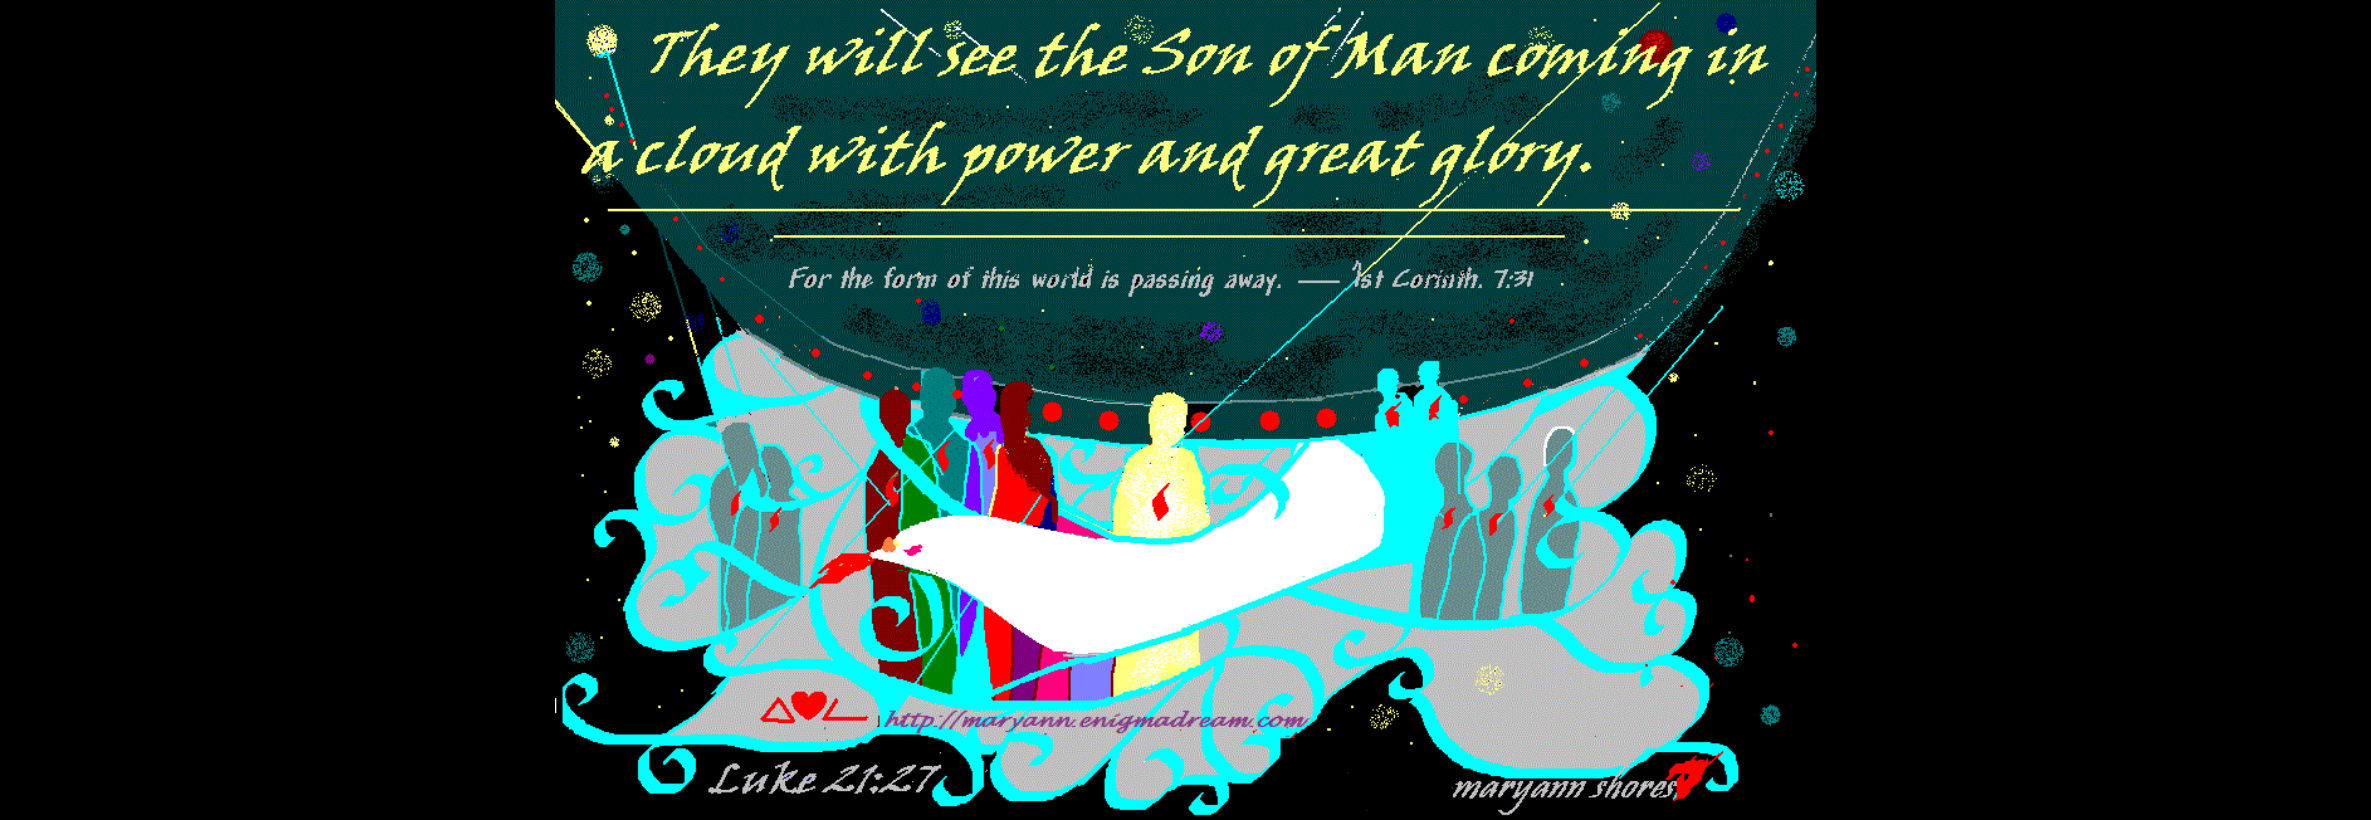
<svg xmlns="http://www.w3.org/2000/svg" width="2371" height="820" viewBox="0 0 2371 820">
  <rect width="100%" height="100%" fill="#000"/>
  <image x="555" y="0" width="1262" height="816" href="img/1.png"/>
</svg>
